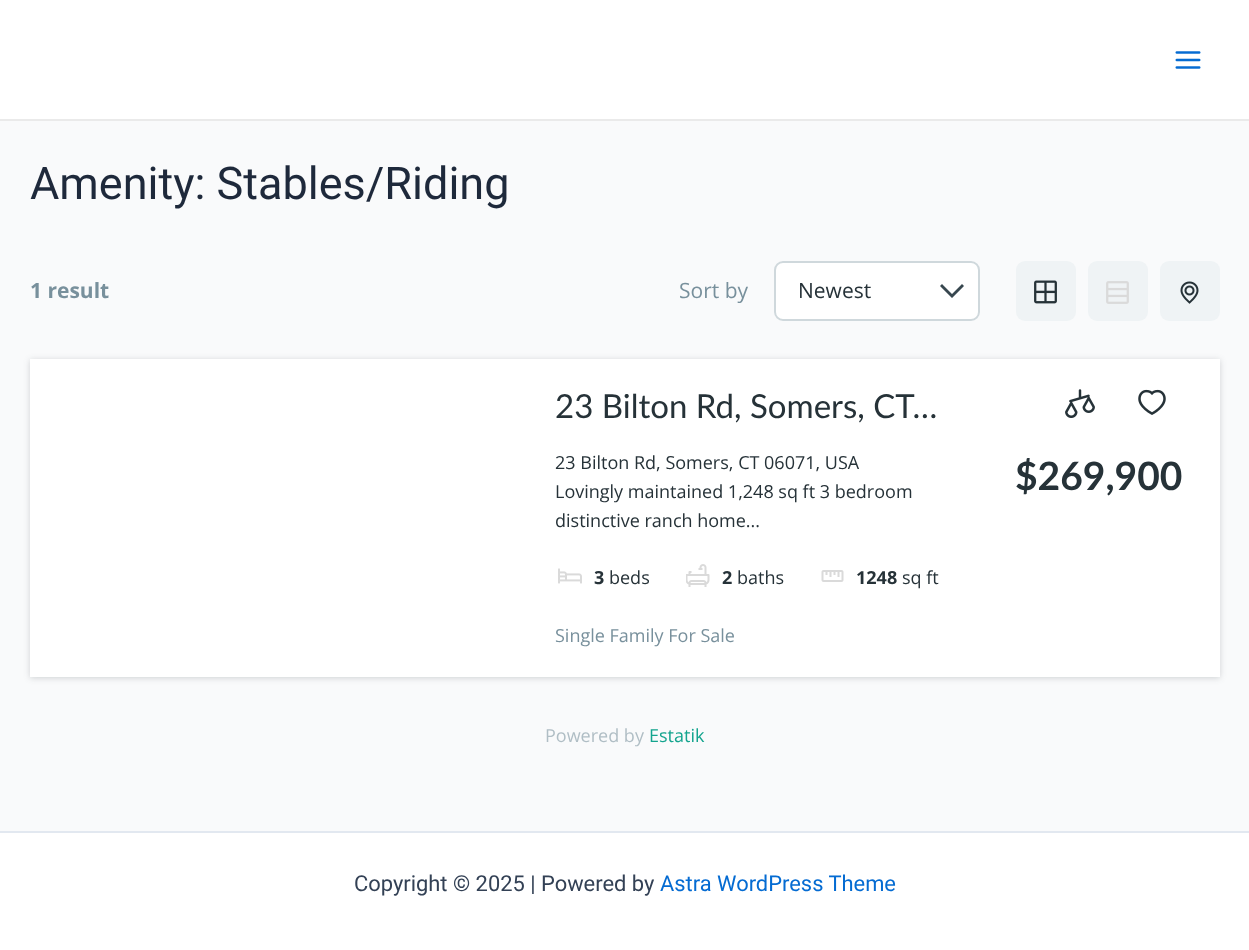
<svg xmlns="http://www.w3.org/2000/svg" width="1249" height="950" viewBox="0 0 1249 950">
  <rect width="100%" height="100%" fill="#f9fafb"/>
  <path d="M0 0h1249v119H0z" fill="#fff"/>
  <path d="M0 119h1249v2H0z" fill="#eaeaea"/>
  <image x="1175" y="51" width="26" height="18" href="img/1.png"/>
  <rect x="774" y="261" width="206" height="60" rx="9" fill="#fff"/>
  <path d="M962 284L964 286L952 298L940 286L942 284L952 294Z" fill="#37474f" fill-rule="evenodd"/>
  <rect x="775" y="262" width="204" height="58" rx="8" fill="none" stroke="#cfd8dc" stroke-width="2"/>
  <rect x="1016" y="261" width="60" height="60" rx="9" fill="#eff3f5"/>
  <image x="1034" y="280" width="23" height="24" href="img/2.png"/>
  <rect x="1088" y="261" width="60" height="60" rx="9" fill="#eff3f5"/>
  <image x="1106" y="281" width="23" height="23" href="img/3.png"/>
  <rect x="1160" y="261" width="60" height="60" rx="9" fill="#eff3f5"/>
  <image x="1180" y="281" width="19" height="23" href="img/4.png"/>
  <path d="M30 360h1190v318H30z" fill="#26323833" filter="blur(3px)"/>
  <path d="M30 359h1190v318H30z" fill="#fff"/>
  <image x="558" y="568" width="24" height="16" href="img/5.png"/>
  <image x="686" y="564" width="24" height="23" href="img/6.png"/>
  <image x="821" y="570" width="23" height="12" href="img/7.png"/>
  <image x="1065" y="389" width="30" height="29" href="img/8.png"/>
  <image x="1138" y="389" width="28" height="26" href="img/9.png"/>
  <path d="M0 833h1249v117H0z" fill="#fff"/>
  <path d="M0 831h1249v2H0z" fill="#e2e8f0"/>
  <text x="30" y="199" font-family="Roboto" font-size="45" fill="#1e293b">Amenity: Stables/Riding</text>
  <text x="30" y="298" font-family="Open Sans" font-size="21" font-weight="bold" fill="#78909c">1 result</text>
  <text x="679" y="298" font-family="Open Sans" font-size="21" fill="#78909c">Sort by</text>
  <text x="798" y="298" font-family="Open Sans" font-size="21" fill="#263238">Newest</text>
  <text x="555" y="418" font-family="Lato" font-size="33" fill="#263238">23 Bilton Rd, Somers, CT…</text>
  <g font-family="Open Sans" font-size="18" fill="#263238">
    <text x="555" y="469">23 Bilton Rd, Somers, CT 06071, USA</text>
    <text x="555" y="498">Lovingly maintained 1,248 sq ft 3 bedroom</text>
    <text x="555" y="527">distinctive ranch home...</text>
  </g>
  <text x="594" y="584" font-family="Open Sans" font-size="18" font-weight="bold" fill="#263238">3</text>
  <text x="609" y="584" font-family="Open Sans" font-size="18" fill="#263238">beds</text>
  <text x="722" y="584" font-family="Open Sans" font-size="18" font-weight="bold" fill="#263238">2</text>
  <text x="737" y="584" font-family="Open Sans" font-size="18" fill="#263238">baths</text>
  <text x="856" y="584" font-family="Open Sans" font-size="18" font-weight="bold" fill="#263238">1248</text>
  <text x="902" y="584" font-family="Open Sans" font-size="18" fill="#263238">sq ft</text>
  <text x="1015" y="490" font-family="Lato" font-size="39" font-weight="bold" fill="#263238">$269,900</text>
  <text x="555" y="642" font-family="Open Sans" font-size="18" fill="#78909c">Single Family For Sale</text>
  <text x="545" y="742" font-family="Open Sans" font-size="18" fill="#b0bec5">Powered by</text>
  <text x="649" y="742" font-family="Open Sans" font-size="18" fill="#13a48e">Estatik</text>
  <text x="354" y="891" font-family="Roboto" font-size="21.9" fill="#334155">Copyright © 2025 | Powered by</text>
  <text x="660" y="891" font-family="Roboto" font-size="21.9" fill="#046bd2">Astra WordPress Theme</text>
</svg>
